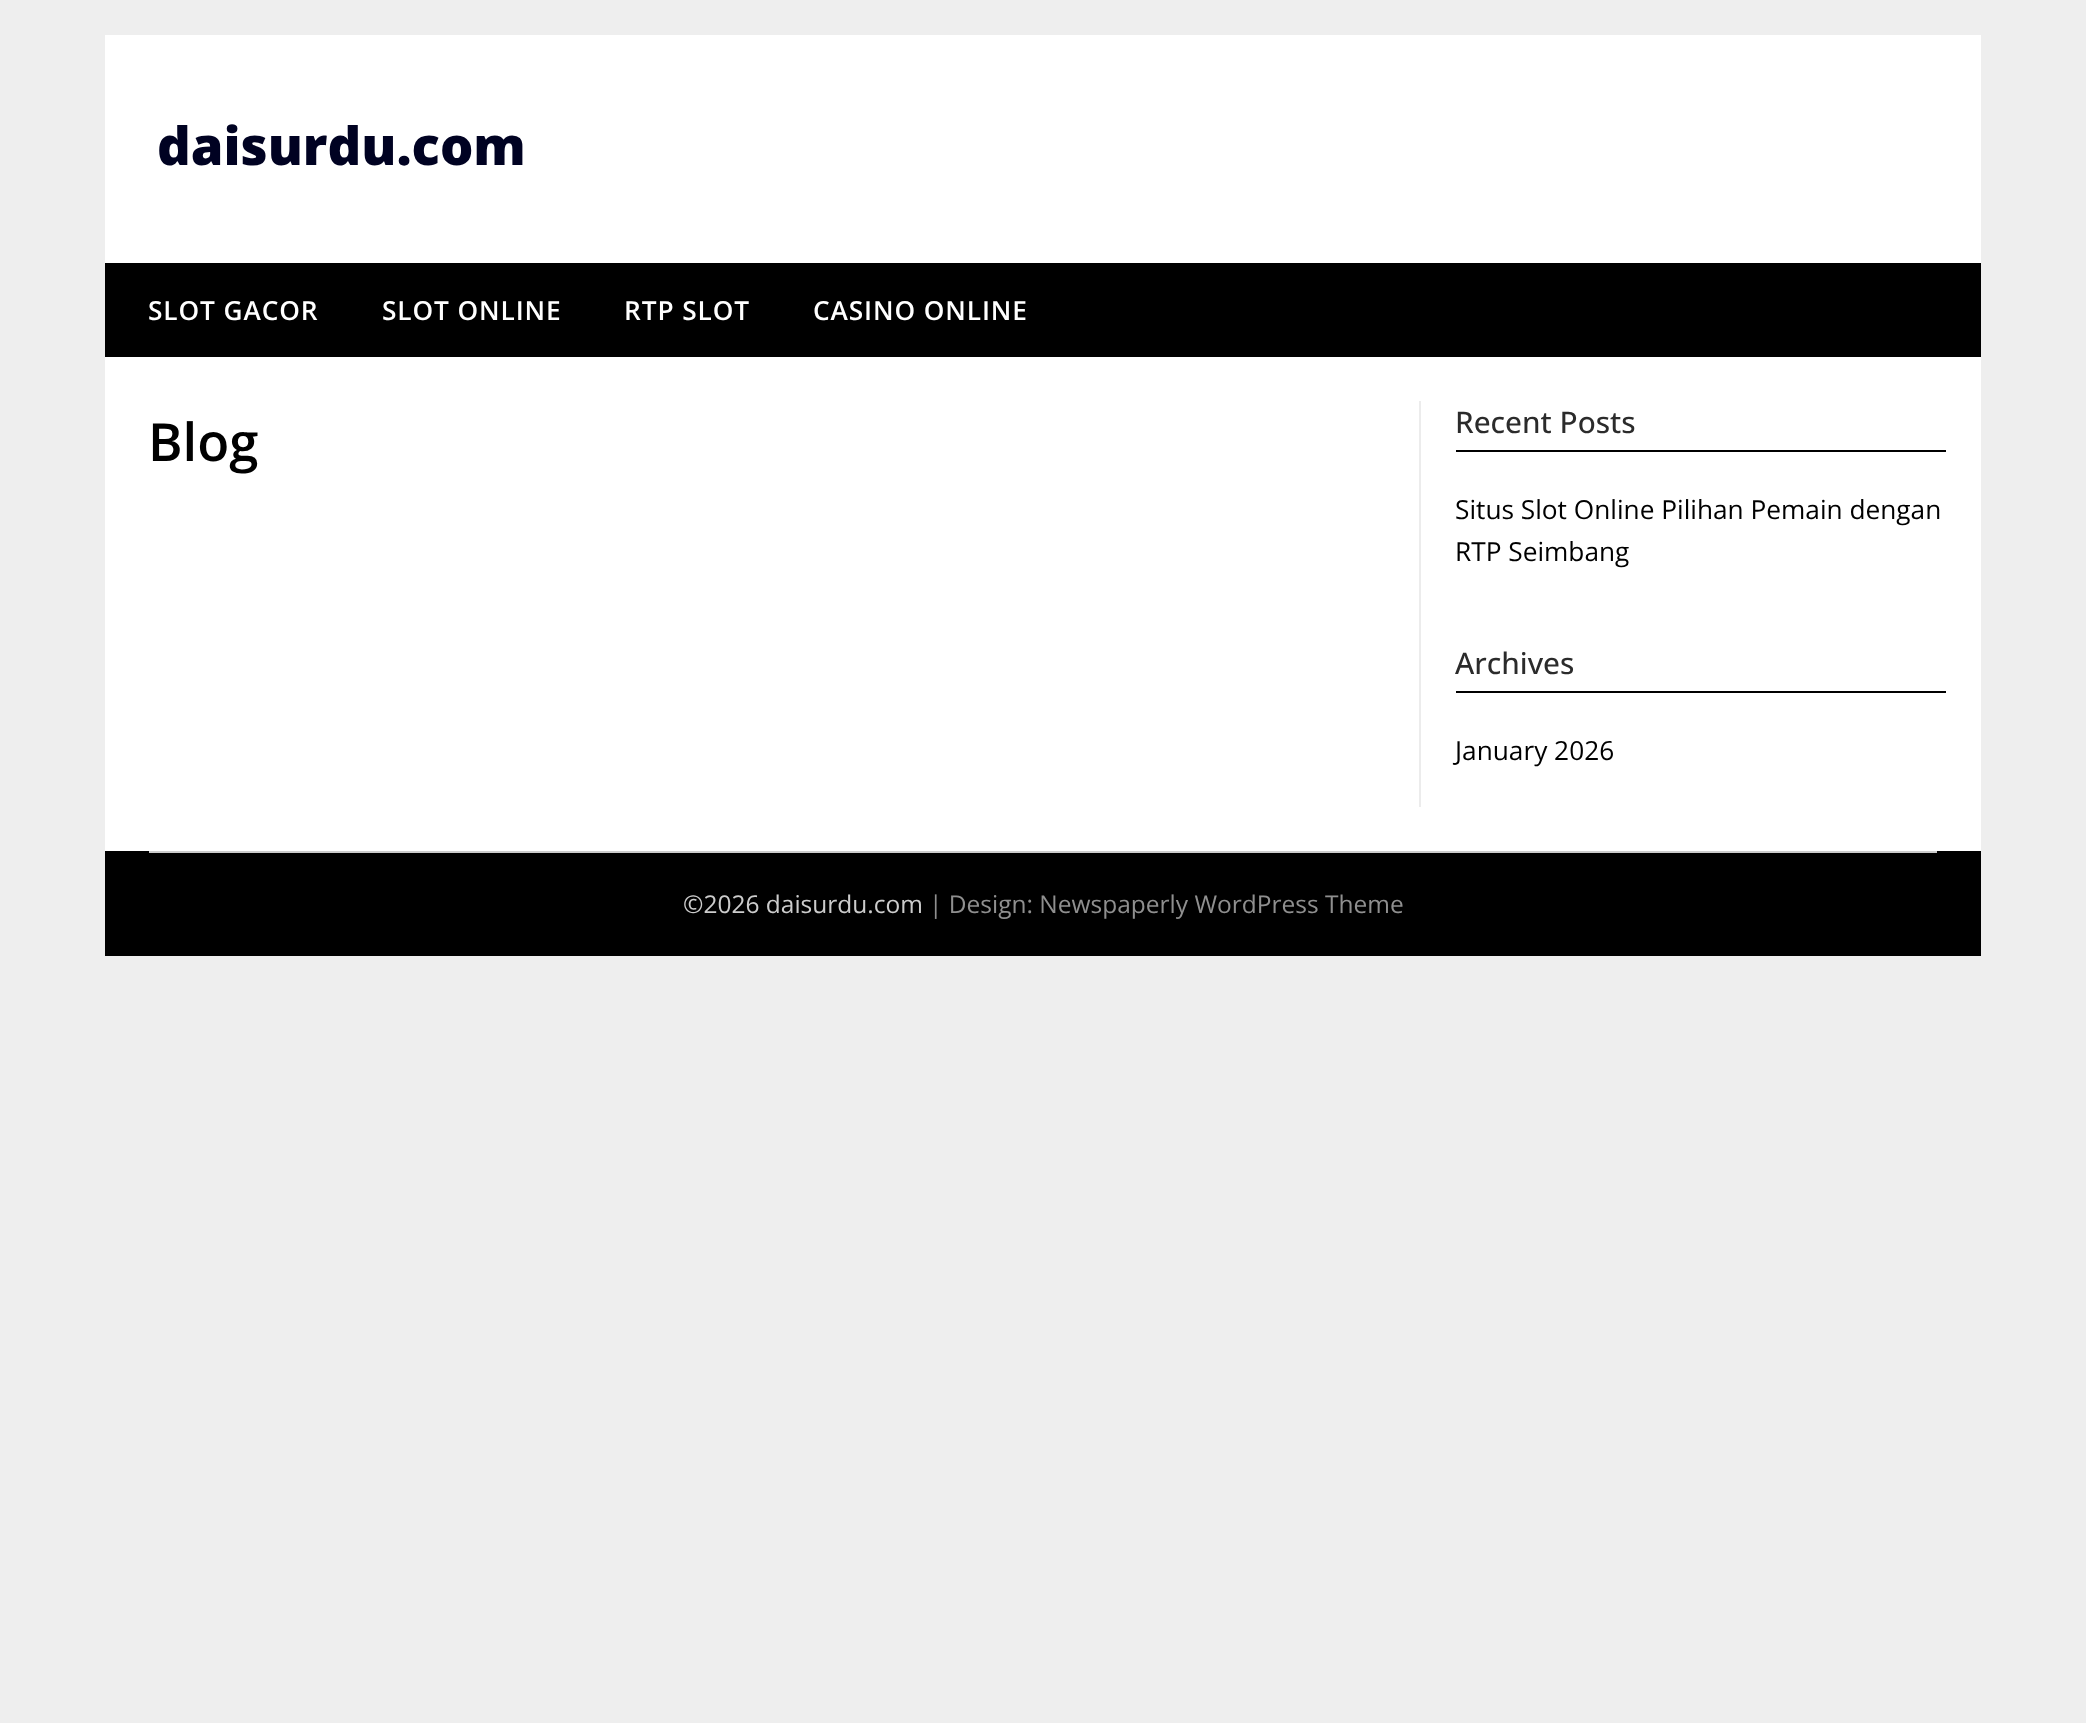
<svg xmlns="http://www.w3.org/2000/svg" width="2086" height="1723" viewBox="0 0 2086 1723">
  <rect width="100%" height="100%" fill="#eee"/>
  <path d="M105 35h1876v228H105z" fill="#fff"/>
  <path d="M105 263h1876v94H105z" fill="#000"/>
  <path d="M105 357h1876v494H105z" fill="#fff"/>
  <path d="M1419 401h2v406H1419z" fill="#ececec"/>
  <path d="M1456 450h490v2H1456z" fill="#000"/>
  <path d="M1456 691h490v2H1456z" fill="#000"/>
  <path d="M105 851h1876v105H105z" fill="#000"/>
  <path d="M149 851h1788v2H149z" fill="#ccc"/>
  <text x="157" y="165" font-family="Open Sans" font-size="52.5" font-weight="800" fill="#000222">daisurdu.com</text>
  <g font-family="Open Sans" font-size="26.25" font-weight="600" letter-spacing="0.9" fill="#fff">
    <text x="148" y="320">SLOT GACOR</text>
    <text x="382" y="320">SLOT ONLINE</text>
    <text x="624" y="320">RTP SLOT</text>
    <text x="813" y="320">CASINO ONLINE</text>
  </g>
  <text x="148" y="461" font-family="Open Sans" font-size="52.5" font-weight="600" fill="#000">Blog</text>
  <text x="1455" y="433" font-family="Open Sans" font-size="29.75" font-weight="500" fill="#2b2b2b">Recent Posts</text>
  <g font-family="Open Sans" font-size="26.25" fill="#000">
    <text x="1455" y="519">Situs Slot Online Pilihan Pemain dengan</text>
    <text x="1455" y="561">RTP Seimbang</text>
  </g>
  <text x="1455" y="674" font-family="Open Sans" font-size="29.75" font-weight="500" fill="#2b2b2b">Archives</text>
  <text x="1455" y="760" font-family="Open Sans" font-size="26.25" fill="#000">January 2026</text>
  <text x="683" y="913" font-family="Open Sans" font-size="24.5" fill="#ccc">©2026 daisurdu.com</text>
  <text x="929" y="913" font-family="Open Sans" font-size="24.5" fill="#8f8f8f">| Design: Newspaperly WordPress Theme</text>
</svg>
